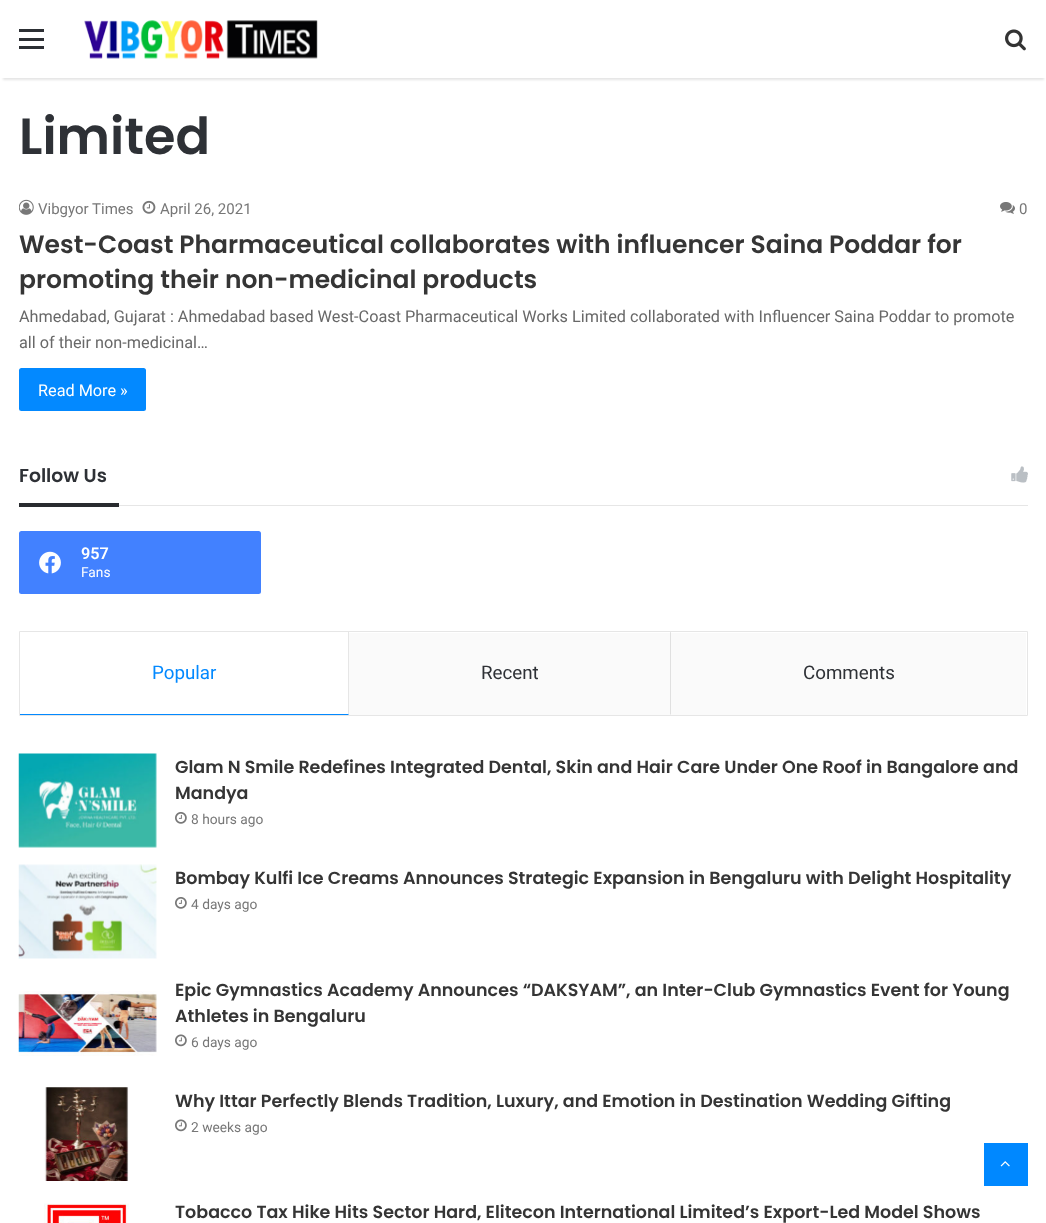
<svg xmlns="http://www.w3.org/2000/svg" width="1046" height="1223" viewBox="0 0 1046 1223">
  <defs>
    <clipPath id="clip1"><path d="M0 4H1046V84H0ZM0 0H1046V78H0Z" clip-rule="evenodd"/></clipPath>
  </defs>
  <rect width="100%" height="100%" fill="#fff"/>
  <g clip-path="url(#clip1)">
    <path d="M3 8h1041v72H3z" fill="#0000001a" filter="blur(1px)"/>
  </g>
  <path d="M2 77h1043v1H2z" fill="#fffffff2"/>
  <path d="M19 38h25v3H19z" fill="#2c2f34"/>
  <path d="M19 29h25v3H19z" fill="#2c2f34"/>
  <path d="M19 46h25v3H19z" fill="#2c2f34"/>
  <image x="84" y="20" width="234" height="39" href="img/1.png"/>
  <image x="1005" y="29" width="21" height="22" href="img/2.png"/>
  <image x="19" y="199" width="15" height="16" href="img/3.png"/>
  <image x="142" y="200" width="14" height="14" href="img/4.png"/>
  <image x="1000" y="202" width="15" height="12" href="img/5.png"/>
  <rect x="19" y="368" width="127" height="43" rx="2.5" fill="#0389ff"/>
  <path d="M119 505h909v1H119z" fill="#e6e6e6"/>
  <image x="1011" y="466" width="17" height="17" href="img/6.png"/>
  <path d="M19 503h100v4H19z" fill="#292b2f"/>
  <rect x="19" y="531" width="242" height="63" rx="2.5" fill="#4281ff"/>
  <image x="39" y="551" width="22" height="23" href="img/7.png"/>
  <path d="M19.5 631.5h1008v84H19.5z" fill="none" stroke="#e6e6e6"/>
  <path d="M349 632V715L348 714V632Z" fill="#e6e6e6"/>
  <path d="M349 715H20V714H348Z" fill="#0389ff"/>
  <path d="M349 633h677v82H349z" fill="#fafafa"/>
  <path d="M671 632V715L670 714V632Z" fill="#0303031a"/>
  <image x="18" y="753" width="139" height="95" href="img/8.png"/>
  <image x="175" y="812" width="12" height="12" href="img/9.png"/>
  <image x="18" y="864" width="139" height="95" href="img/10.png"/>
  <image x="175" y="897" width="12" height="12" href="img/9.png"/>
  <image x="18" y="991" width="139" height="65" href="img/11.png"/>
  <image x="175" y="1034" width="12" height="13" href="img/12.png"/>
  <image x="44" y="1087" width="85" height="94" href="img/13.png"/>
  <image x="175" y="1119" width="12" height="13" href="img/12.png"/>
  <image x="44" y="1203" width="85" height="20" href="img/14.png"/>
  <path d="M984 1143h44v43H984z" fill="#08f"/>
  <image x="1000" y="1161" width="10" height="6" href="img/15.png"/>
  <text x="19" y="154" font-family="Poppins" font-size="51" font-weight="600" fill="#2e3136">Limited</text>
  <g font-family="Roboto" font-size="15" fill="#777">
    <text x="38" y="214">Vibgyor Times</text>
    <text x="160" y="214">April 26, 2021</text>
    <text x="1019" y="214">0</text>
  </g>
  <g font-family="Poppins" font-size="25" font-weight="600" fill="#353535">
    <text x="19" y="253">West-Coast Pharmaceutical collaborates with influencer Saina Poddar for</text>
    <text x="19" y="288">promoting their non-medicinal products</text>
  </g>
  <g font-family="Roboto" font-size="16.25" fill="#686868">
    <text x="19" y="322">Ahmedabad, Gujarat : Ahmedabad based West-Coast Pharmaceutical Works Limited collaborated with Influencer Saina Poddar to promote</text>
    <text x="19" y="348">all of their non-medicinal…</text>
  </g>
  <text x="38" y="396" font-family="Roboto" font-size="16.25" fill="#fff">Read More »</text>
  <text x="19" y="482" font-family="Poppins" font-size="18.75" font-weight="600" fill="#2e3136">Follow Us</text>
  <text x="81" y="559" font-family="Roboto" font-size="16.25" font-weight="600" fill="#fff">957</text>
  <text x="81" y="577" font-family="Roboto" font-size="13.75" fill="#fff">Fans</text>
  <text x="152" y="679" font-family="Roboto" font-size="18.75" fill="#0389ff">Popular</text>
  <g font-family="Roboto" font-size="18.75" fill="#2e3136">
    <text x="481" y="679">Recent</text>
    <text x="803" y="679">Comments</text>
  </g>
  <g font-family="Poppins" font-size="17.5" font-weight="600" fill="#353535">
    <text x="175" y="773">Glam N Smile Redefines Integrated Dental, Skin and Hair Care Under One Roof in Bangalore and</text>
    <text x="175" y="799">Mandya</text>
  </g>
  <text x="191" y="824" font-family="Roboto" font-size="13.75" fill="#777">8 hours ago</text>
  <text x="175" y="884" font-family="Poppins" font-size="17.5" font-weight="600" fill="#353535">Bombay Kulfi Ice Creams Announces Strategic Expansion in Bengaluru with Delight Hospitality</text>
  <text x="191" y="909" font-family="Roboto" font-size="13.75" fill="#777">4 days ago</text>
  <g font-family="Poppins" font-size="17.5" font-weight="600" fill="#353535">
    <text x="175" y="996">Epic Gymnastics Academy Announces “DAKSYAM”, an Inter-Club Gymnastics Event for Young</text>
    <text x="175" y="1022">Athletes in Bengaluru</text>
  </g>
  <text x="191" y="1047" font-family="Roboto" font-size="13.75" fill="#777">6 days ago</text>
  <text x="175" y="1107" font-family="Poppins" font-size="17.5" font-weight="600" fill="#353535">Why Ittar Perfectly Blends Tradition, Luxury, and Emotion in Destination Wedding Gifting</text>
  <text x="191" y="1132" font-family="Roboto" font-size="13.75" fill="#777">2 weeks ago</text>
  <text x="175" y="1218" font-family="Poppins" font-size="17.5" font-weight="600" fill="#353535">Tobacco Tax Hike Hits Sector Hard, Elitecon International Limited’s Export-Led Model Shows</text>
</svg>
